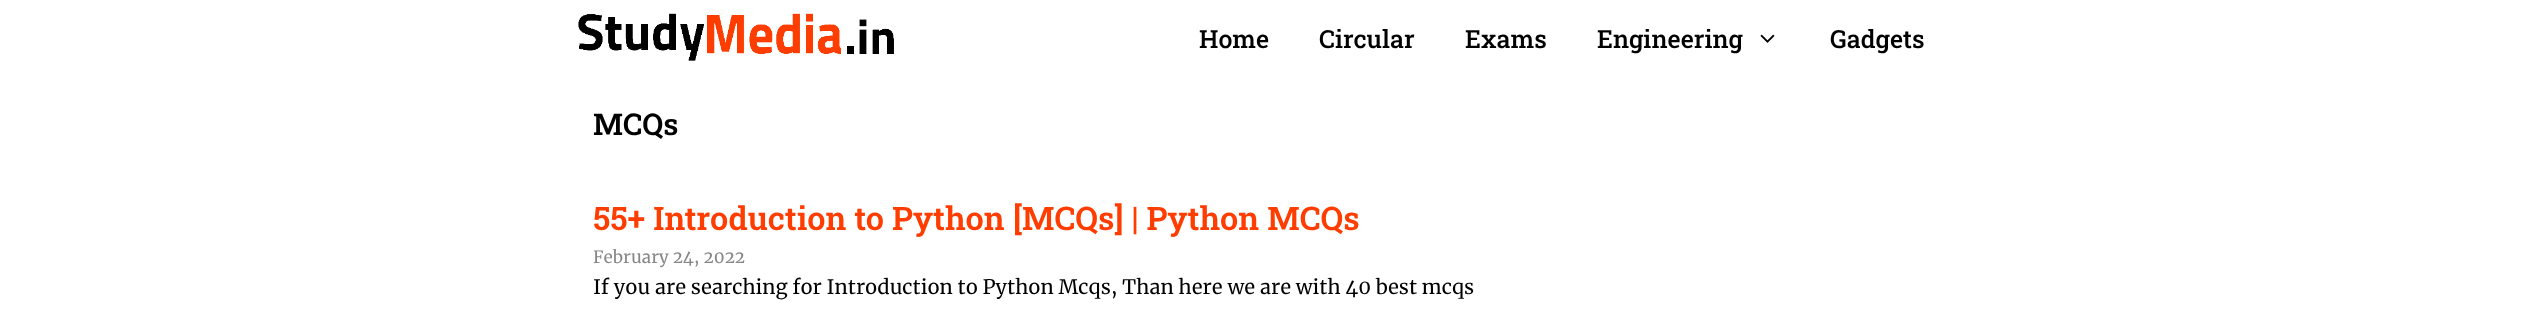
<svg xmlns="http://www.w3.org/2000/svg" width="2523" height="320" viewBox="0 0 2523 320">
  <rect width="100%" height="100%" fill="#fff"/>
  <image x="578" y="13" width="316" height="48" href="img/1.png"/>
  <image x="1760" y="34" width="15" height="9" href="img/2.png"/>
  <g font-family="Roboto Slab" font-size="25" font-weight="500" fill="#000">
    <text x="1199" y="48">Home</text>
    <text x="1319" y="48">Circular</text>
    <text x="1465" y="48">Exams</text>
    <text x="1597" y="48">Engineering</text>
    <text x="1830" y="48">Gadgets</text>
  </g>
  <text x="593" y="135" font-family="Roboto Slab" font-size="30" font-weight="600" fill="#000">MCQs</text>
  <text x="593" y="230" font-family="Roboto Slab" font-size="32.5" font-weight="600" fill="#ff3d00">55+ Introduction to Python [MCQs] | Python MCQs</text>
  <text x="593" y="263" font-family="Merriweather" font-size="17" fill="#878787">February 24, 2022</text>
  <text x="593" y="294" font-family="Merriweather" font-size="20" fill="#000">If you are searching for Introduction to Python Mcqs, Than here we are with 40 best mcqs</text>
</svg>
